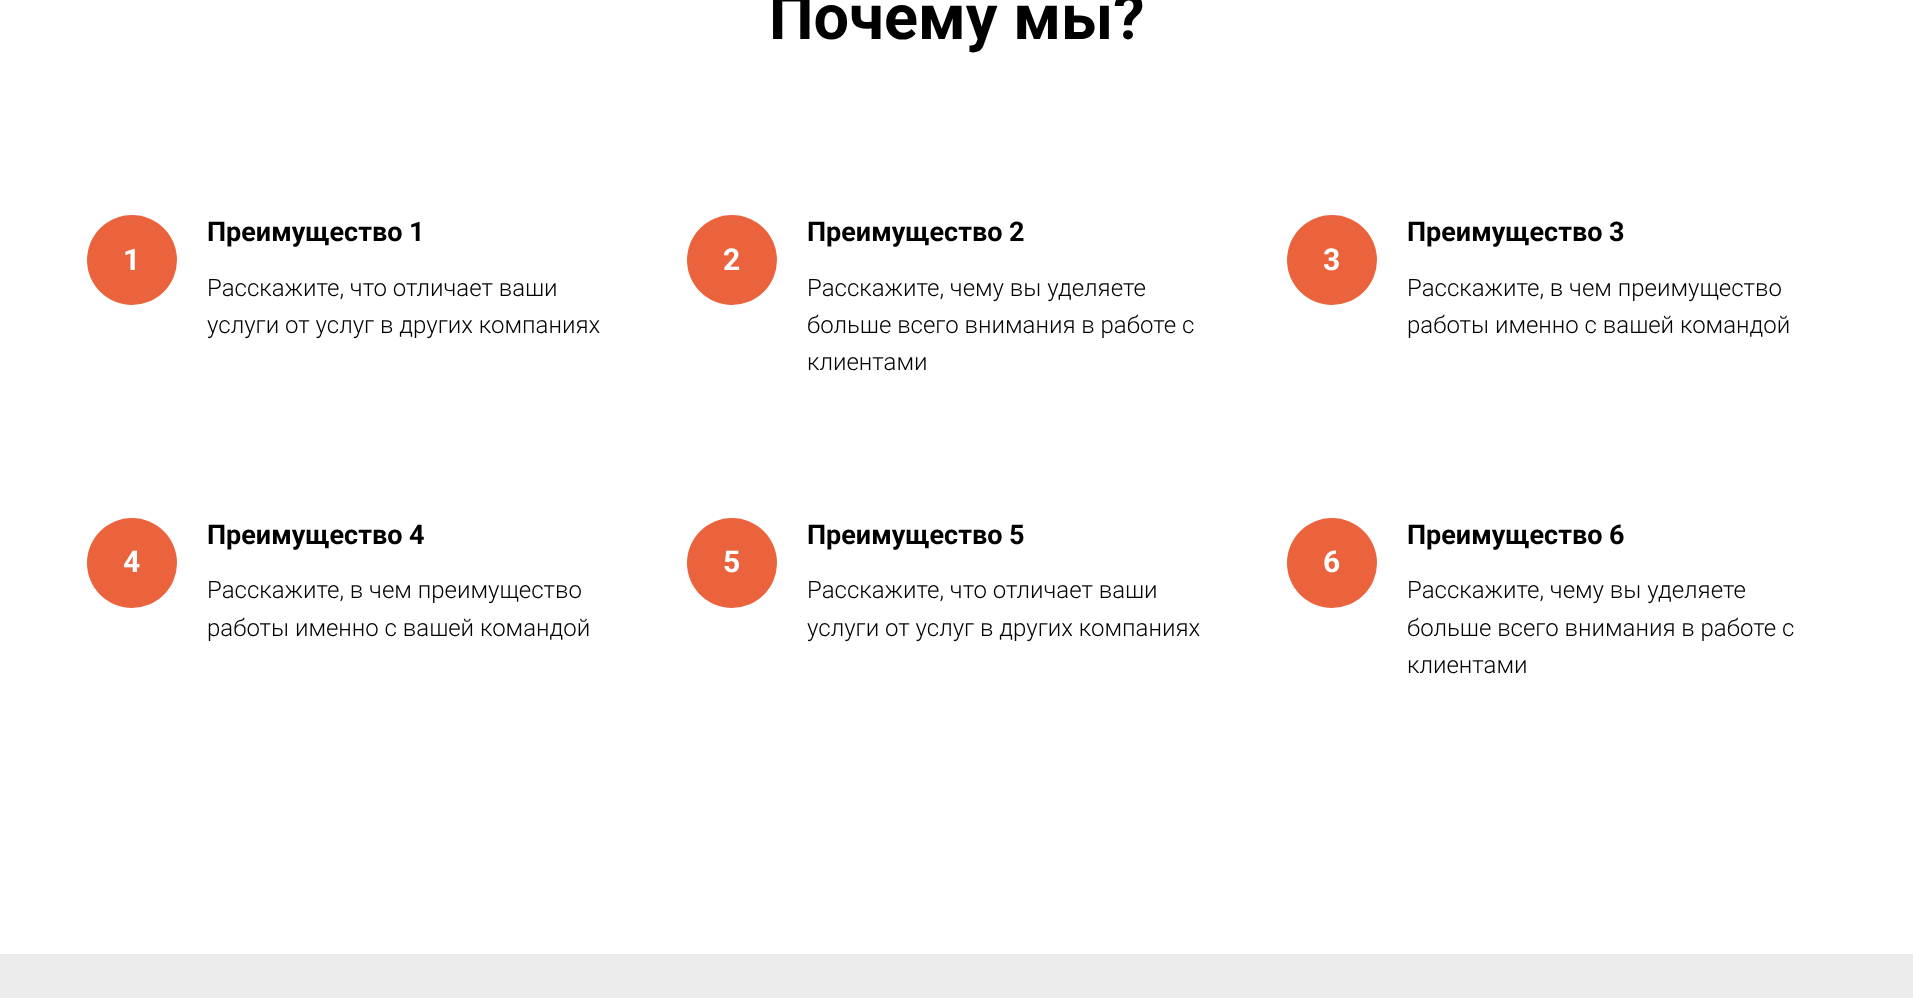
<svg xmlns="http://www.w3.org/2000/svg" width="1913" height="998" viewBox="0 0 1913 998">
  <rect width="100%" height="100%" fill="#fff"/>
  <circle cx="132" cy="260" r="45" fill="#eb633d"/>
  <circle cx="732" cy="260" r="45" fill="#eb633d"/>
  <circle cx="1332" cy="260" r="45" fill="#eb633d"/>
  <circle cx="132" cy="563" r="45" fill="#eb633d"/>
  <circle cx="732" cy="563" r="45" fill="#eb633d"/>
  <circle cx="1332" cy="563" r="45" fill="#eb633d"/>
  <path d="M0 954h1913v44H0z" fill="#ebebeb"/>
  <text x="769" y="39" font-family="Roboto" font-size="63" font-weight="bold" fill="#000">Почему мы?</text>
  <text x="123" y="270" font-family="Roboto" font-size="30" font-weight="bold" fill="#fff">1</text>
  <text x="207" y="241" font-family="Roboto" font-size="27" font-weight="bold" fill="#000">Преимущество 1</text>
  <g font-family="Roboto" font-size="24" font-weight="300" fill="#000">
    <text x="207" y="296">Расскажите, что отличает ваши</text>
    <text x="207" y="333">услуги от услуг в других компаниях</text>
  </g>
  <text x="723" y="270" font-family="Roboto" font-size="30" font-weight="bold" fill="#fff">2</text>
  <text x="807" y="241" font-family="Roboto" font-size="27" font-weight="bold" fill="#000">Преимущество 2</text>
  <g font-family="Roboto" font-size="24" font-weight="300" fill="#000">
    <text x="807" y="296">Расскажите, чему вы уделяете</text>
    <text x="807" y="333">больше всего внимания в работе с</text>
    <text x="807" y="370">клиентами</text>
  </g>
  <text x="1323" y="270" font-family="Roboto" font-size="30" font-weight="bold" fill="#fff">3</text>
  <text x="1407" y="241" font-family="Roboto" font-size="27" font-weight="bold" fill="#000">Преимущество 3</text>
  <g font-family="Roboto" font-size="24" font-weight="300" fill="#000">
    <text x="1407" y="296">Расскажите, в чем преимущество</text>
    <text x="1407" y="333">работы именно с вашей командой</text>
  </g>
  <text x="123" y="572" font-family="Roboto" font-size="30" font-weight="bold" fill="#fff">4</text>
  <text x="207" y="544" font-family="Roboto" font-size="27" font-weight="bold" fill="#000">Преимущество 4</text>
  <g font-family="Roboto" font-size="24" font-weight="300" fill="#000">
    <text x="207" y="598">Расскажите, в чем преимущество</text>
    <text x="207" y="636">работы именно с вашей командой</text>
  </g>
  <text x="723" y="572" font-family="Roboto" font-size="30" font-weight="bold" fill="#fff">5</text>
  <text x="807" y="544" font-family="Roboto" font-size="27" font-weight="bold" fill="#000">Преимущество 5</text>
  <g font-family="Roboto" font-size="24" font-weight="300" fill="#000">
    <text x="807" y="598">Расскажите, что отличает ваши</text>
    <text x="807" y="636">услуги от услуг в других компаниях</text>
  </g>
  <text x="1323" y="572" font-family="Roboto" font-size="30" font-weight="bold" fill="#fff">6</text>
  <text x="1407" y="544" font-family="Roboto" font-size="27" font-weight="bold" fill="#000">Преимущество 6</text>
  <g font-family="Roboto" font-size="24" font-weight="300" fill="#000">
    <text x="1407" y="598">Расскажите, чему вы уделяете</text>
    <text x="1407" y="636">больше всего внимания в работе с</text>
    <text x="1407" y="673">клиентами</text>
  </g>
</svg>
